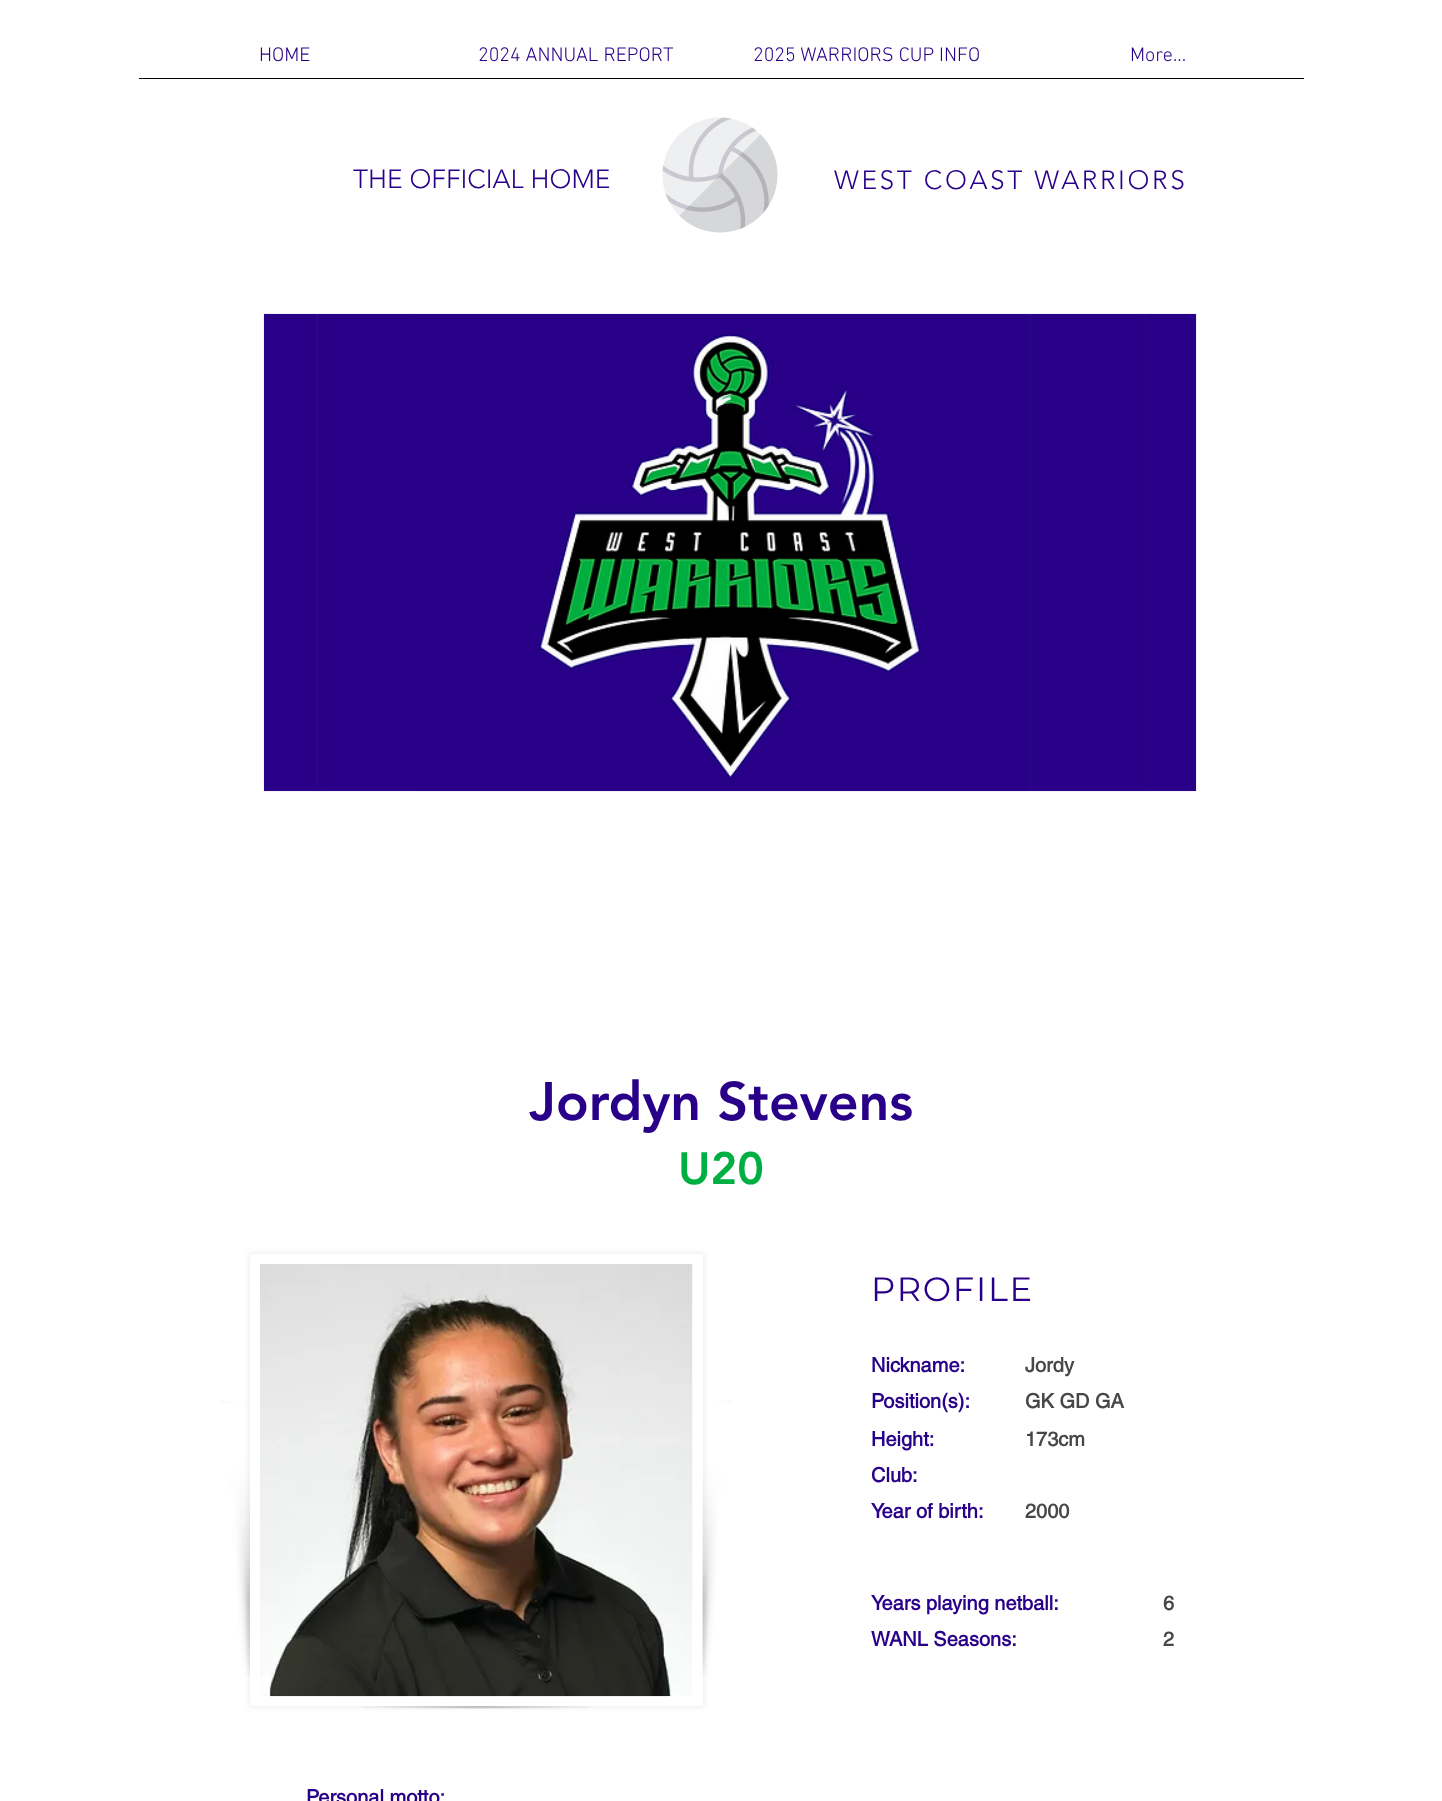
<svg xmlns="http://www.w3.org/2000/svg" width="1442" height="1801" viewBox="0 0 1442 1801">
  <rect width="100%" height="100%" fill="#fff"/>
  <path d="M139 78h1165v1H139z" fill="#000"/>
  <image x="662" y="117" width="116" height="116" href="img/1.png"/>
  <image x="263" y="313" width="934" height="479" href="img/2.png"/>
  <path d="M250 1254h453v452H250z" fill="#0000001a" filter="blur(3px)"/>
  <image x="220" y="1401" width="30" height="275" href="img/3.png"/>
  <path d="M250 1254h453v452H250z" fill="#fff"/>
  <image x="260" y="1264" width="433" height="433" href="img/4.png"/>
  <image x="364" y="1706" width="225" height="3" href="img/5.png"/>
  <image x="702" y="1401" width="30" height="274" href="img/6.png"/>
  <g font-family="'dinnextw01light'" font-size="20" font-weight="300" fill="#290088">
    <text x="259" y="61">HOME</text>
    <text x="478" y="61">2024 ANNUAL REPORT</text>
    <text x="753" y="61">2025 WARRIORS CUP INFO</text>
    <text x="1130" y="61">More...</text>
  </g>
  <text x="353" y="188" font-family="'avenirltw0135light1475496'" font-size="26.25" font-weight="300" fill="#290088">THE OFFICIAL HOME</text>
  <text x="834" y="189" font-family="'avenirltw0135light1475496'" font-size="26.25" font-weight="300" letter-spacing="2.6" fill="#290088">WEST COAST WARRIORS</text>
  <text x="529" y="1120" font-family="'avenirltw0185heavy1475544'" font-size="53.75" font-weight="900" fill="#290088">Jordyn Stevens</text>
  <text x="871" y="1301" font-family="Montserrat" font-size="33.75" letter-spacing="1.75" fill="#290088">PROFILE</text>
  <text x="871" y="1372" font-family="helvetica" font-size="20" font-weight="bold" fill="#290088">Nickname:</text>
  <text x="1025" y="1372" font-family="helvetica" font-size="20" font-weight="bold" fill="#474747">Jordy</text>
  <text x="871" y="1408" font-family="helvetica" font-size="20" font-weight="bold" fill="#290088">Position(s):</text>
  <text x="1025" y="1408" font-family="helvetica" font-size="20" font-weight="bold" fill="#474747">GK GD GA</text>
  <text x="871" y="1446" font-family="helvetica" font-size="20" font-weight="bold" fill="#290088">Height:</text>
  <text x="1025" y="1446" font-family="helvetica" font-size="20" font-weight="bold" fill="#474747">173cm</text>
  <g font-family="helvetica" font-size="20" font-weight="bold" fill="#290088">
    <text x="871" y="1482">Club:</text>
    <text x="871" y="1518">Year of birth:</text>
  </g>
  <text x="1025" y="1518" font-family="helvetica" font-size="20" font-weight="bold" fill="#474747">2000</text>
  <text x="871" y="1610" font-family="helvetica" font-size="20" font-weight="bold" fill="#290088">Years playing netball:</text>
  <text x="1163" y="1610" font-family="helvetica" font-size="20" font-weight="bold" fill="#474747">6</text>
  <text x="871" y="1646" font-family="helvetica" font-size="20" font-weight="bold" fill="#290088">WANL Seasons:</text>
  <text x="1163" y="1646" font-family="helvetica" font-size="20" font-weight="bold" fill="#474747">2</text>
  <text x="678" y="1184" font-family="'avenirltw0185heavy1475544'" font-size="45" font-weight="900" fill="#00af41">U20</text>
  <text x="306" y="1804" font-family="helvetica" font-size="20" font-weight="bold" fill="#290088">Personal motto:</text>
</svg>
